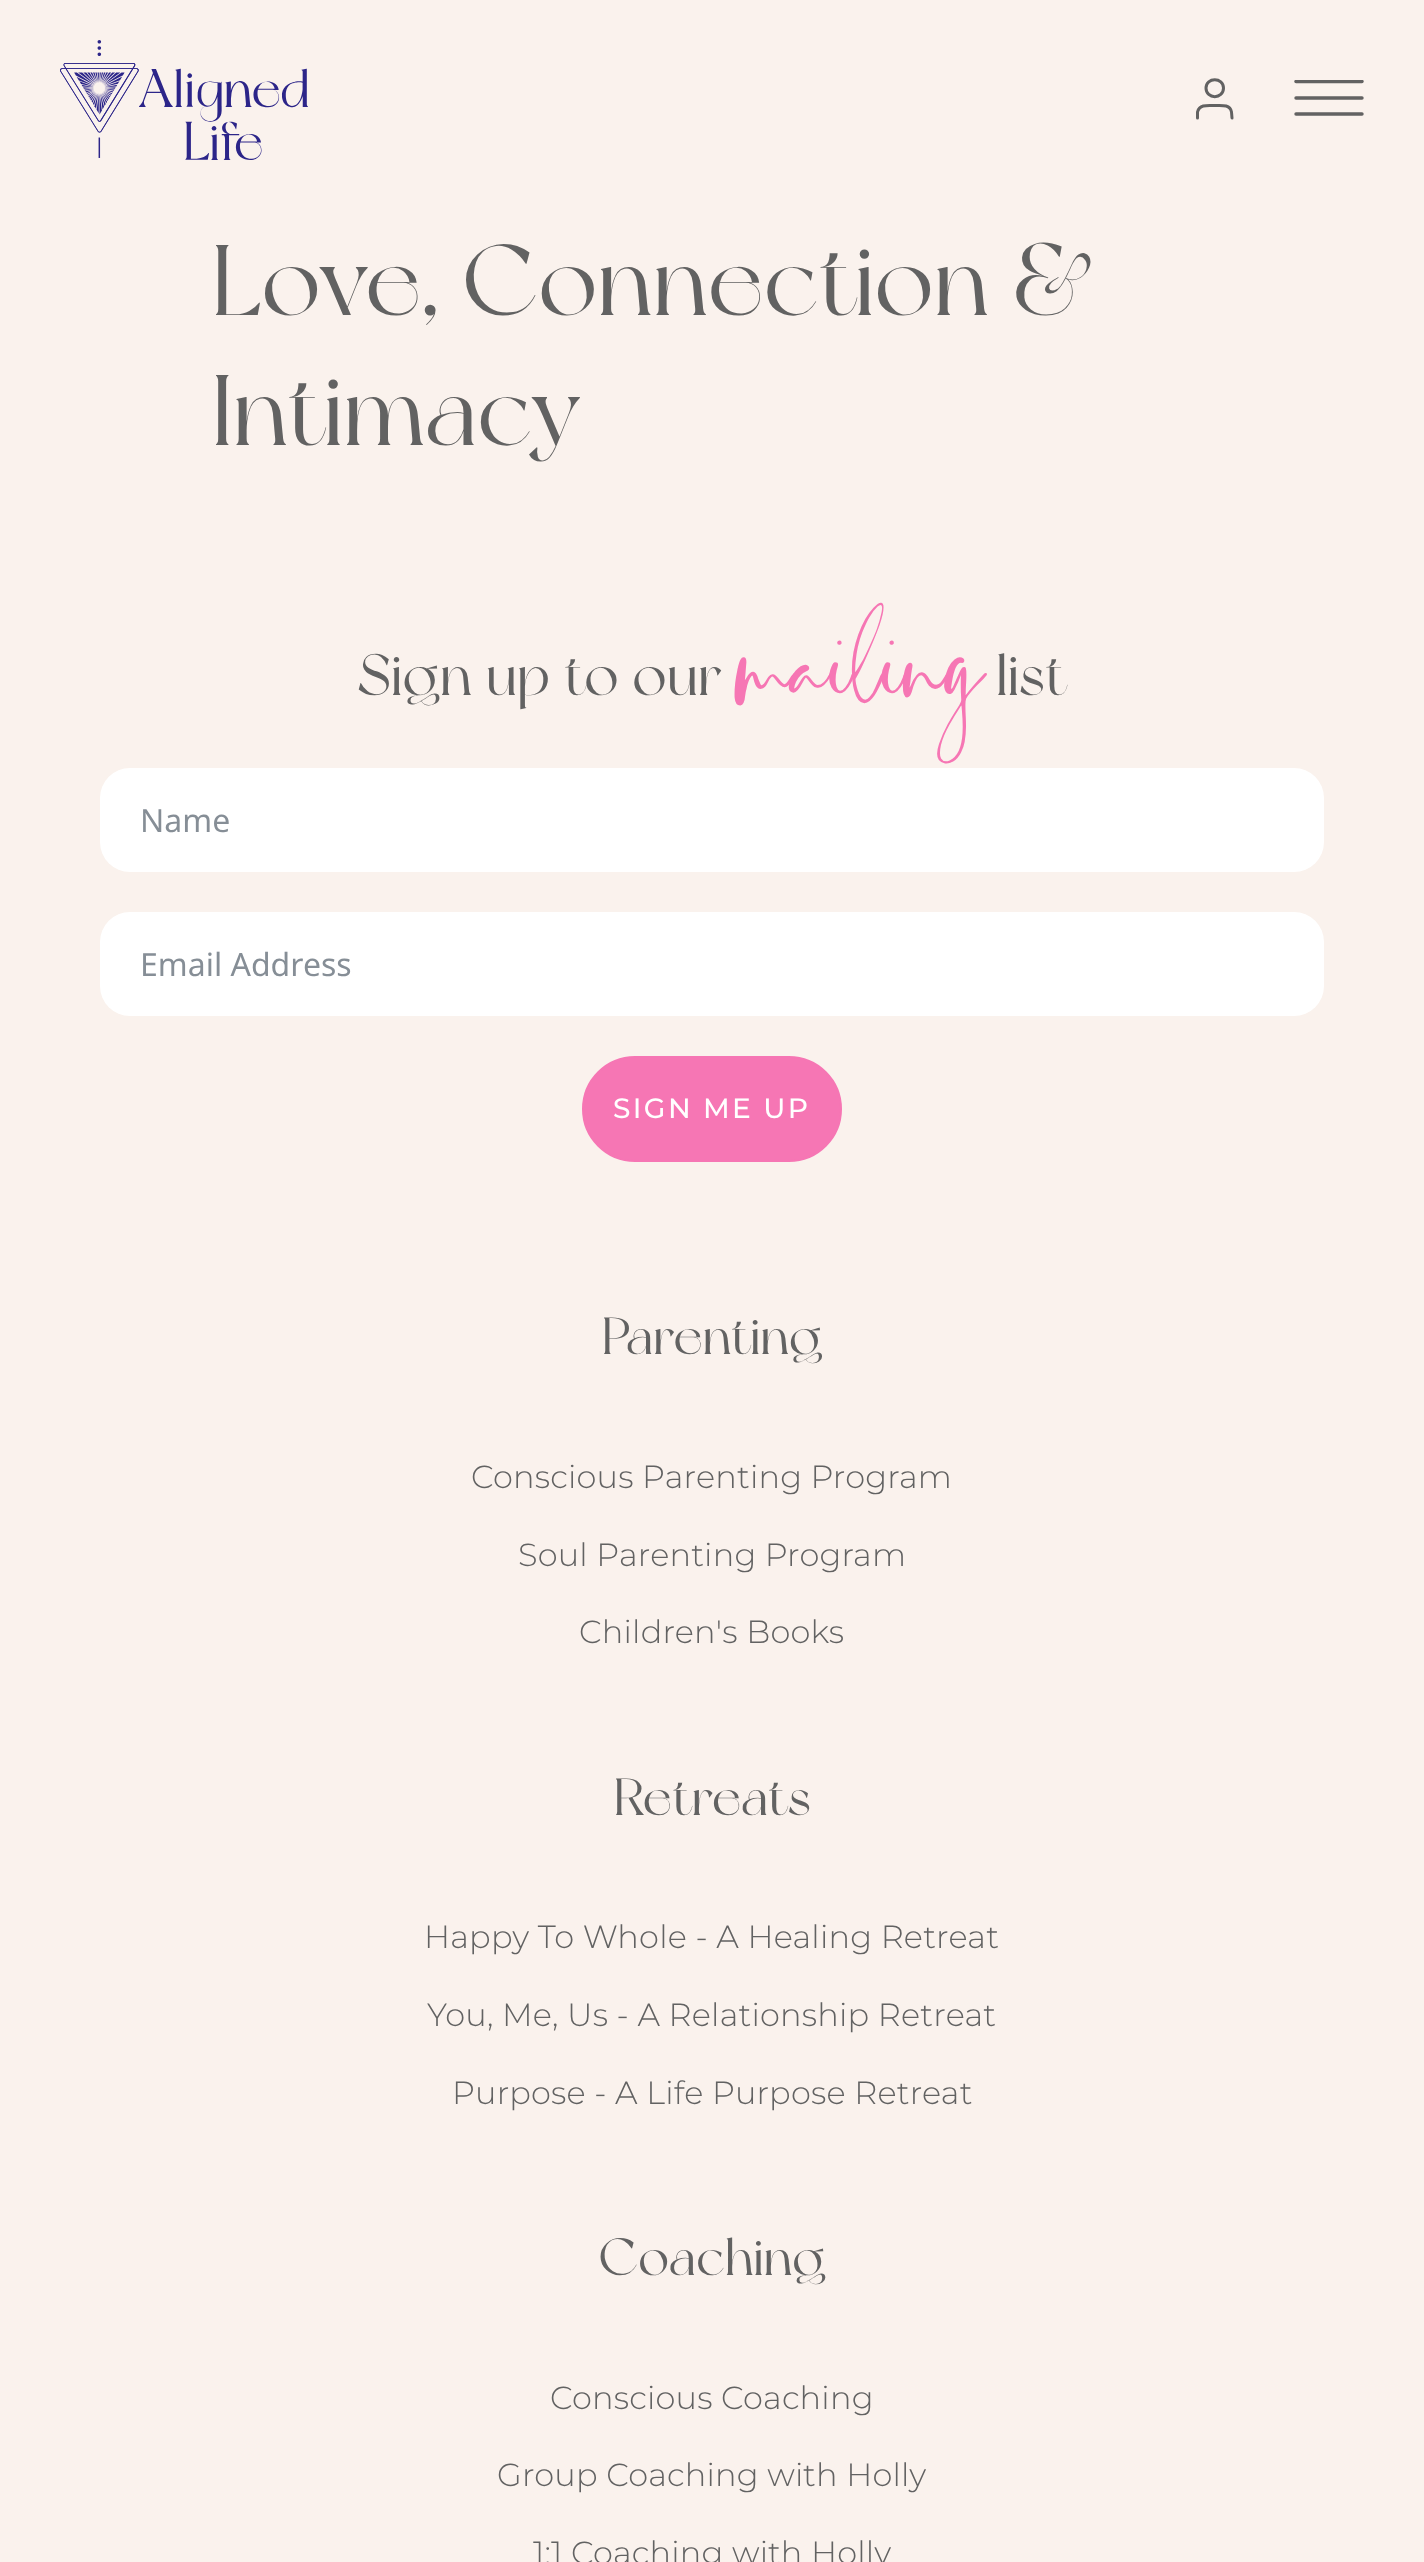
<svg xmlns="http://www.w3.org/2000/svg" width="1424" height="2562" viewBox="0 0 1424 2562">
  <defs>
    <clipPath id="clip1"><path d="M1294 80h70v36H1294z"/></clipPath>
  </defs>
  <rect width="100%" height="100%" fill="#faf2ed"/>
  <image x="60" y="40" width="248" height="120" href="img/1.png"/>
  <path d="M1232 118L1231.5 112C1230 104 1221 105.5 1214.5 105.5C1208.5 105.5 1199.5 104 1197.5 112V118M1223.5 88C1223.5 99.5 1206 99.5 1206 88C1206 77 1223.5 77 1223.5 88Z" fill="none" stroke="#626262" stroke-width="3" stroke-linecap="round" stroke-linejoin="round"/>
  <path d="M1296 98H1362" fill="none" stroke="#626262" stroke-width="3.4" stroke-linecap="round" stroke-linejoin="round"/>
  <g clip-path="url(#clip1)">
    <path d="M1296 81.5H1362" fill="none" stroke="#626262" stroke-width="3.4" stroke-linecap="round" stroke-linejoin="round"/>
  </g>
  <path d="M1296 114H1362" fill="none" stroke="#626262" stroke-width="3.4" stroke-linecap="round" stroke-linejoin="round"/>
  <rect x="100" y="768" width="1224" height="104" rx="30" fill="#fff"/>
  <rect x="100" y="912" width="1224" height="104" rx="30" fill="#fff"/>
  <rect x="583" y="1057" width="258" height="104" rx="52" fill="#f676b4" stroke="#f676b4" stroke-width="2"/>
  <g font-family="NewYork" font-size="100" letter-spacing="0.2" fill="#626262">
    <text x="212" y="315">Love, Connection &amp;</text>
    <text x="212" y="445">Intimacy</text>
  </g>
  <text x="357" y="695" font-family="NewYork" font-size="58" letter-spacing="0.2" fill="#626262">Sign up to our</text>
  <text x="735" y="695" font-family="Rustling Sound" font-size="86" letter-spacing="0.2" fill="#f676b4">mailing</text>
  <text x="996" y="695" font-family="NewYork" font-size="58" letter-spacing="0.2" fill="#626262">list</text>
  <g font-family="Noto Sans" font-size="32" fill="#868e96">
    <text x="140" y="832">Name</text>
    <text x="140" y="976">Email Address</text>
  </g>
  <text x="613" y="1118" font-family="Montserrat" font-size="28" font-weight="500" letter-spacing="2.4" fill="#fff">SIGN ME UP</text>
  <text x="602" y="1354" font-family="NewYork" font-size="52" letter-spacing="0.2" fill="#626262">Parenting</text>
  <g font-family="Montserrat" font-size="32" font-weight="300" letter-spacing="0.2" fill="#626262">
    <text x="471" y="1488">Conscious Parenting Program</text>
    <text x="518" y="1566">Soul Parenting Program</text>
    <text x="579" y="1643">Children's Books</text>
  </g>
  <text x="614" y="1815" font-family="NewYork" font-size="52" letter-spacing="0.2" fill="#626262">Retreats</text>
  <g font-family="Montserrat" font-size="32" font-weight="300" letter-spacing="0.2" fill="#626262">
    <text x="424" y="1948">Happy To Whole - A Healing Retreat</text>
    <text x="427" y="2026">You, Me, Us - A Relationship Retreat</text>
    <text x="452" y="2104">Purpose - A Life Purpose Retreat</text>
  </g>
  <text x="599" y="2275" font-family="NewYork" font-size="52" letter-spacing="0.2" fill="#626262">Coaching</text>
  <g font-family="Montserrat" font-size="32" font-weight="300" letter-spacing="0.2" fill="#626262">
    <text x="550" y="2409">Conscious Coaching</text>
    <text x="497" y="2486">Group Coaching with Holly</text>
    <text x="533" y="2564">1:1 Coaching with Holly</text>
  </g>
</svg>
